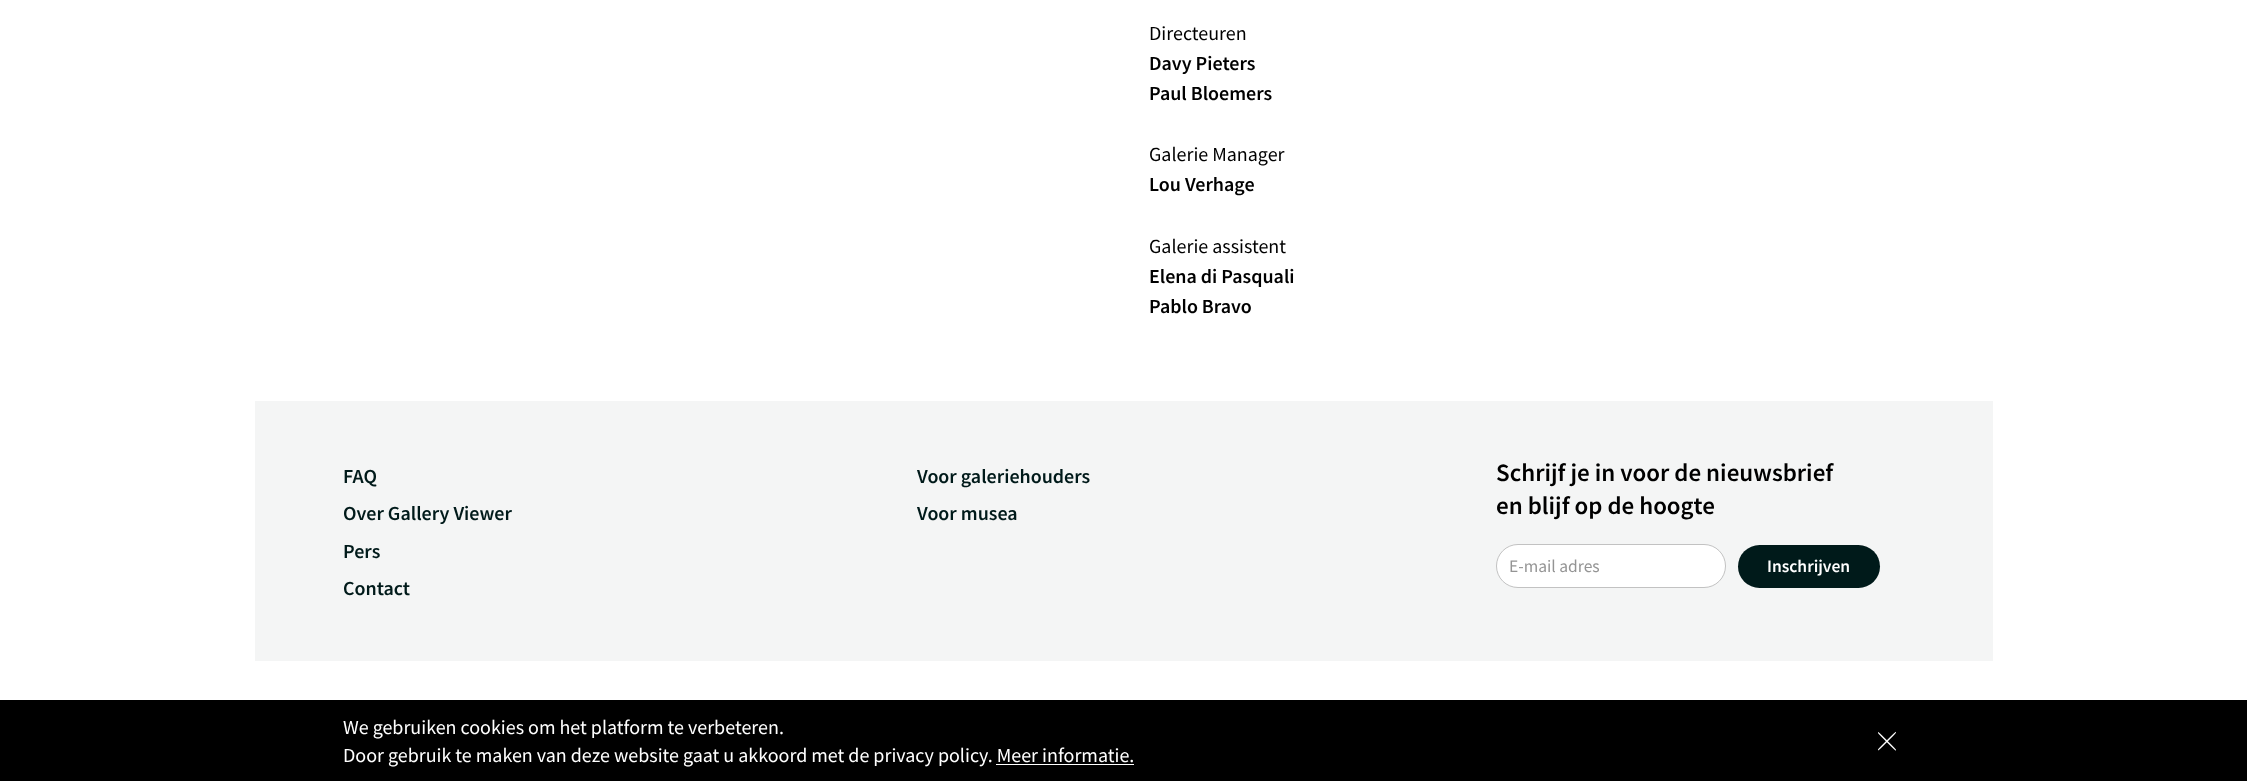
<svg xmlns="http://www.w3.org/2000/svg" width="2247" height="781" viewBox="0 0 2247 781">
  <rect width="100%" height="100%" fill="#fff"/>
  <path d="M255 401h1738v260H255z" fill="#f4f5f5"/>
  <rect x="1496.5" y="544.5" width="229" height="43" rx="21.5" fill="#fff" stroke="#c2c2c2"/>
  <rect x="1738" y="545" width="142" height="43" rx="21.5" fill="#001a1a"/>
  <path d="M0 700h2247v81H0z" fill="#000"/>
  <path d="M996 764h138v1H996z" fill="#fff"/>
  <image x="1878" y="731" width="18" height="20" href="img/1.png"/>
  <text x="1149" y="40" font-family="Source Sans Pro" font-size="20" fill="#000">Directeuren</text>
  <g font-family="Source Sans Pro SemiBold" font-size="20" font-weight="600" fill="#000">
    <text x="1149" y="70">Davy Pieters</text>
    <text x="1149" y="100">Paul Bloemers</text>
  </g>
  <text x="1149" y="161" font-family="Source Sans Pro" font-size="20" fill="#000">Galerie Manager</text>
  <text x="1149" y="191" font-family="Source Sans Pro SemiBold" font-size="20" font-weight="600" fill="#000">Lou Verhage</text>
  <text x="1149" y="253" font-family="Source Sans Pro" font-size="20" fill="#000">Galerie assistent</text>
  <g font-family="Source Sans Pro SemiBold" font-size="20" font-weight="600" fill="#000">
    <text x="1149" y="283">Elena di Pasquali</text>
    <text x="1149" y="313">Pablo Bravo</text>
  </g>
  <g font-family="Source Sans Pro SemiBold" font-size="20" font-weight="600" fill="#001a1a">
    <text x="343" y="483">FAQ</text>
    <text x="343" y="520">Over Gallery Viewer</text>
    <text x="343" y="558">Pers</text>
    <text x="343" y="595">Contact</text>
    <text x="917" y="483">Voor galeriehouders</text>
    <text x="917" y="520">Voor musea</text>
  </g>
  <g font-family="Source Sans Pro SemiBold" font-size="25" font-weight="600" fill="#000">
    <text x="1496" y="481">Schrijf je in voor de nieuwsbrief</text>
    <text x="1496" y="514">en blijf op de hoogte</text>
  </g>
  <text x="1509" y="572" font-family="Source Sans Pro" font-size="17.5" fill="#949494">E-mail adres</text>
  <text x="1767" y="572" font-family="Source Sans Pro SemiBold" font-size="17.5" font-weight="600" fill="#fff">Inschrijven</text>
  <g font-family="Source Sans Pro" font-size="20" fill="#fff">
    <text x="343" y="734">We gebruiken cookies om het platform te verbeteren.</text>
    <text x="343" y="762">Door gebruik te maken van deze website gaat u akkoord met de privacy policy. Meer informatie.</text>
  </g>
</svg>
